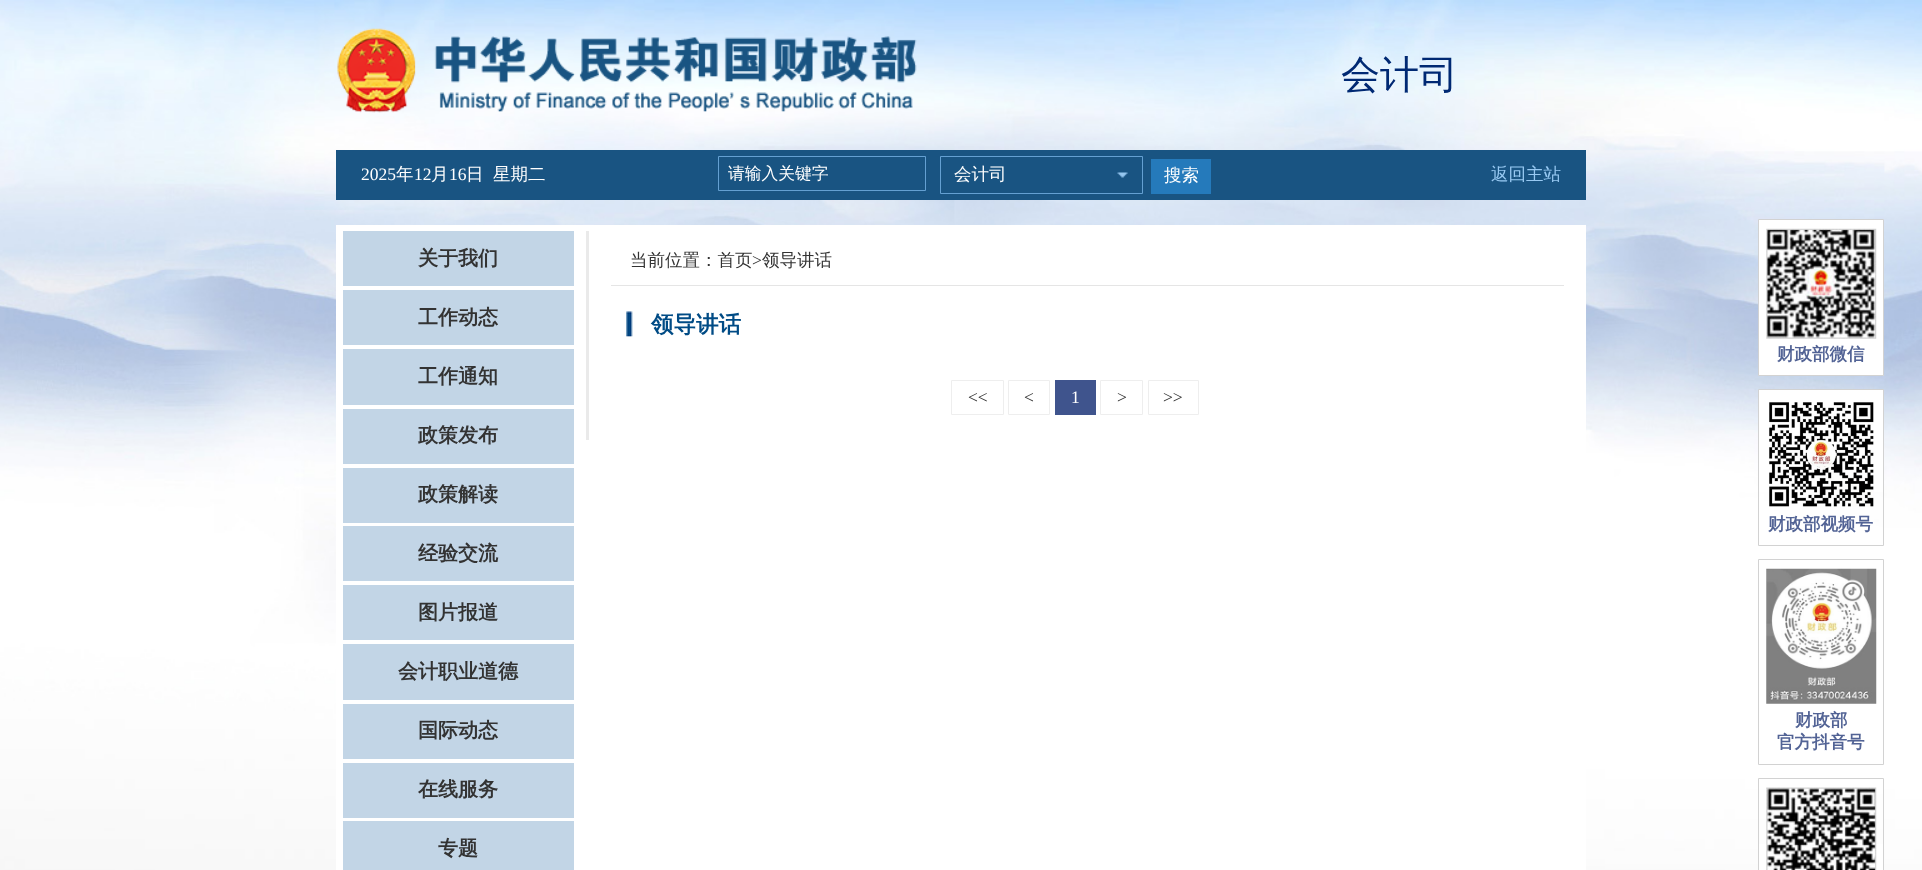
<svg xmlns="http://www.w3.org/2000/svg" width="1922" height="870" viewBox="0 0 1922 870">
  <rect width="100%" height="100%" fill="#fff"/>
  <image x="0" y="0" width="1922" height="870" href="img/1.png"/>
  <image x="337" y="28" width="580" height="85" href="img/2.png"/>
  <path d="M336 150h1250v50H336z" fill="#195482"/>
  <path d="M718.5 156.5h207v34H718.5z" fill="none" stroke="#64a0d2"/>
  <path d="M940.5 156.5h202v37H940.5z" fill="none" stroke="#64a0d2"/>
  <image x="1117" y="172" width="11" height="6" href="img/3.png"/>
  <path d="M1151 159h60v35H1151z" fill="#257abb"/>
  <path d="M336 225h1250v645H336z" fill="#fff"/>
  <path d="M343 231h231v55H343z" fill="#c2d5e6"/>
  <path d="M343 290h231v55H343z" fill="#c2d5e6"/>
  <path d="M343 349h231v56H343z" fill="#c2d5e6"/>
  <path d="M343 409h231v55H343z" fill="#c2d5e6"/>
  <path d="M343 468h231v55H343z" fill="#c2d5e6"/>
  <path d="M343 526h231v55H343z" fill="#c2d5e6"/>
  <path d="M343 585h231v55H343z" fill="#c2d5e6"/>
  <path d="M343 644h231v56H343z" fill="#c2d5e6"/>
  <path d="M343 704h231v55H343z" fill="#c2d5e6"/>
  <path d="M343 763h231v55H343z" fill="#c2d5e6"/>
  <path d="M343 821h231v49H343z" fill="#c2d5e6"/>
  <path d="M586 231h3v209H586z" fill="#eaeaea"/>
  <path d="M611 285h953v1H611z" fill="#e5e5e5"/>
  <image x="626" y="311" width="7" height="26" href="img/4.png"/>
  <path d="M951.5 380.5h52v34H951.5z" fill="none" stroke="#eee"/>
  <path d="M1008.5 380.5h41v34H1008.5z" fill="none" stroke="#eee"/>
  <path d="M1055 380h41v35H1055z" fill="#3f548d"/>
  <path d="M1100.5 380.5h42v34H1100.5z" fill="none" stroke="#eee"/>
  <path d="M1148.5 380.5h50v34H1148.5z" fill="none" stroke="#eee"/>
  <path d="M1758.5 219.5h125v156H1758.5z" fill="#fff" stroke="#d2d2d2"/>
  <image x="1766" y="228" width="111" height="111" href="img/5.png"/>
  <path d="M1759 390h124v102H1759z" fill="#fff"/>
  <path d="M1758.5 389.5h125v156H1758.5z" fill="none" stroke="#d2d2d2"/>
  <image x="1769" y="402" width="105" height="105" href="img/6.png"/>
  <path d="M1758.5 559.5h125v205H1758.5z" fill="none" stroke="#d2d2d2"/>
  <image x="1766" y="568" width="111" height="136" href="img/7.png"/>
  <path d="M1759 844h124v26H1759z" fill="#fff"/>
  <path d="M1758.5 778.5h125v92H1758.5z" fill="none" stroke="#d2d2d2"/>
  <image x="1766" y="787" width="111" height="83" href="img/8.png"/>
  <text x="1341" y="88" font-family="WenQuanYi Zen Hei" font-size="39" font-weight="500" fill="#002973">会计司</text>
  <text x="361" y="180" font-family="Liberation Serif" font-size="17.5" fill="#fff">2025</text>
  <text x="396" y="180" font-family="WenQuanYi Zen Hei" font-size="17.5" font-weight="500" fill="#fff">年</text>
  <text x="414" y="180" font-family="Liberation Serif" font-size="17.5" fill="#fff">12</text>
  <text x="431" y="180" font-family="WenQuanYi Zen Hei" font-size="17.5" font-weight="500" fill="#fff">月</text>
  <text x="449" y="180" font-family="Liberation Serif" font-size="17.5" fill="#fff">16</text>
  <g font-family="WenQuanYi Zen Hei" font-size="17.5" font-weight="500" fill="#fff">
    <text x="466" y="180">日</text>
    <text x="493" y="180">星期二</text>
  </g>
  <text x="728" y="179" font-family="WenQuanYi Zen Hei" font-size="16.75" font-weight="500" fill="#fff">请输入关键字</text>
  <g font-family="WenQuanYi Zen Hei" font-size="17.5" font-weight="500" fill="#fff">
    <text x="954" y="180">会计司</text>
    <text x="1164" y="181">搜索</text>
  </g>
  <text x="1491" y="180" font-family="WenQuanYi Zen Hei" font-size="17.5" font-weight="500" fill="#98c9f2">返回主站</text>
  <g font-family="WenQuanYi Zen Hei" font-size="20" font-weight="bold" fill="#333">
    <text x="418" y="265">关于我们</text>
    <text x="418" y="324">工作动态</text>
    <text x="418" y="383">工作通知</text>
    <text x="418" y="442">政策发布</text>
    <text x="418" y="501">政策解读</text>
    <text x="418" y="560">经验交流</text>
    <text x="418" y="619">图片报道</text>
    <text x="398" y="678">会计职业道德</text>
    <text x="418" y="737">国际动态</text>
    <text x="418" y="796">在线服务</text>
    <text x="438" y="855">专题</text>
  </g>
  <text x="630" y="266" font-family="WenQuanYi Zen Hei" font-size="17.5" font-weight="500" fill="#333">当前位置：首页</text>
  <text x="752" y="266" font-family="Liberation Serif" font-size="17.5" fill="#333">&gt;</text>
  <text x="762" y="266" font-family="WenQuanYi Zen Hei" font-size="17.5" font-weight="500" fill="#333">领导讲话</text>
  <text x="651" y="332" font-family="WenQuanYi Zen Hei" font-size="22.5" font-weight="bold" fill="#004b85">领导讲话</text>
  <g font-family="Liberation Serif" font-size="17.5" fill="#333">
    <text x="968" y="403">&lt;&lt;</text>
    <text x="1024" y="403">&lt;</text>
  </g>
  <text x="1071" y="403" font-family="Liberation Serif" font-size="17.5" fill="#fff">1</text>
  <g font-family="Liberation Serif" font-size="17.5" fill="#333">
    <text x="1117" y="403">&gt;</text>
    <text x="1163" y="403">&gt;&gt;</text>
  </g>
  <g font-family="WenQuanYi Zen Hei" font-size="17.5" font-weight="bold" fill="#526395">
    <text x="1777" y="360">财政部微信</text>
    <text x="1768" y="530">财政部视频号</text>
    <text x="1795" y="726">财政部</text>
    <text x="1777" y="748">官方抖音号</text>
  </g>
</svg>
